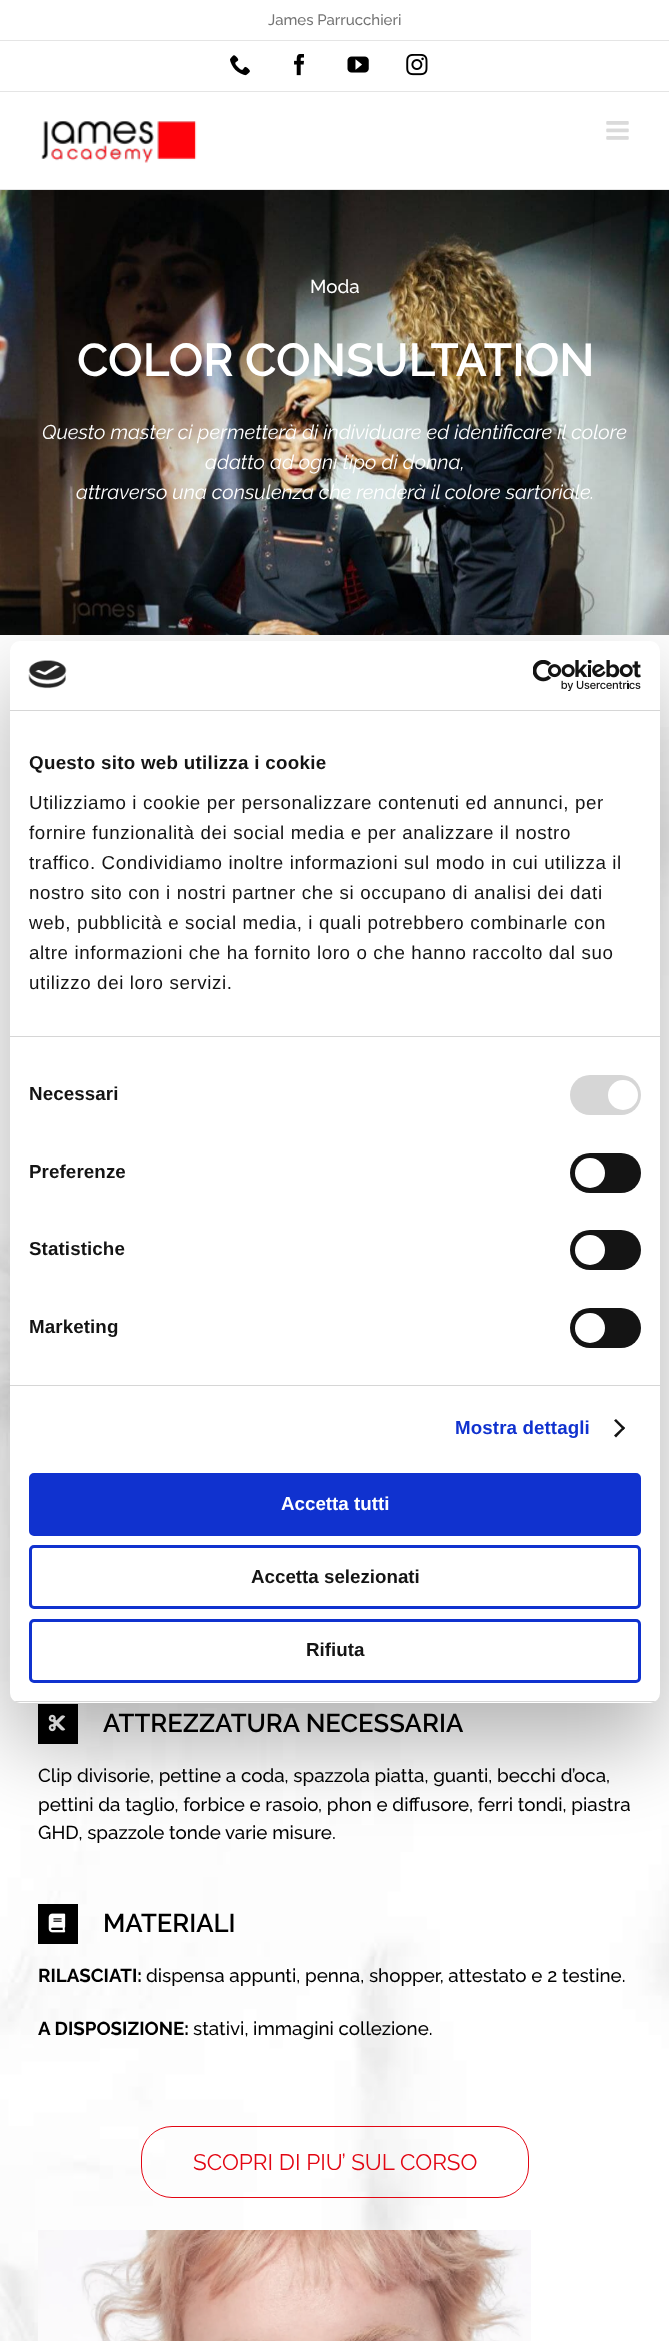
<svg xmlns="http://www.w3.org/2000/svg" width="669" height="2341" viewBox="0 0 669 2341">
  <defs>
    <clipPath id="clip1"><rect x="10" y="641" width="650" height="1062" rx="10"/></clipPath>
  </defs>
  <rect width="100%" height="100%" fill="#fff"/>
  <path d="M0 91h669v1H0z" fill="#e5e5e5"/>
  <path d="M0 40h669v1H0z" fill="#e5e5e5"/>
  <image x="230" y="55" width="20" height="21" href="img/1.png"/>
  <image x="294" y="54" width="10" height="22" href="img/2.png"/>
  <image x="347" y="56" width="22" height="17" href="img/3.png"/>
  <image x="406" y="54" width="22" height="22" href="img/4.png"/>
  <path d="M0 189h669v1H0z" fill="#e5e5e5"/>
  <image x="41" y="121" width="156" height="42" href="img/5.png"/>
  <image x="606" y="121" width="23" height="19" href="img/6.png"/>
  <image x="0" y="190" width="669" height="445" href="img/7.png"/>
  <image x="0" y="727" width="669" height="1614" href="img/8.png"/>
  <path d="M38 1704h40v40H38z" fill="#000"/>
  <image x="48" y="1714" width="18" height="18" href="img/9.png"/>
  <path d="M38 1904h40v40H38z" fill="#000"/>
  <image x="48" y="1913" width="18" height="20" href="img/10.png"/>
  <rect x="141.5" y="2126.5" width="387" height="71" rx="30.5" fill="none" stroke="#e30613"/>
  <image x="38" y="2230" width="493" height="111" href="img/11.png"/>
  <rect x="10" y="681" width="650" height="1062" rx="10" fill="#0000004d" filter="blur(42.5px)"/>
  <rect x="10" y="641" width="650" height="1062" rx="10" fill="#fff"/>
  <path d="M10 710h650v1H10z" fill="#d6d6d6"/>
  <image x="28" y="660" width="39" height="29" href="img/12.png"/>
  <image x="533" y="660" width="108" height="31" href="img/13.png"/>
  <path d="M10 1036h650v1H10z" fill="#d6d6d6"/>
  <path d="M10 1385h650v1H10z" fill="#d6d6d6"/>
  <rect x="570" y="1075" width="71" height="40" rx="20" fill="#d6d6d6"/>
  <circle cx="623" cy="1095" r="15" fill="#fff"/>
  <rect x="570" y="1153" width="71" height="40" rx="20" fill="#141414"/>
  <circle cx="590" cy="1173" r="15" fill="#fff"/>
  <rect x="570" y="1230" width="71" height="40" rx="20" fill="#141414"/>
  <circle cx="590" cy="1250" r="15" fill="#fff"/>
  <rect x="570" y="1308" width="71" height="40" rx="20" fill="#141414"/>
  <circle cx="590" cy="1328" r="15" fill="#fff"/>
  <path d="M616 1419L625 1428L623.5 1430L614 1420.5Z" fill="#141414"/>
  <path d="M623.5 1426.5L625 1428L616 1437.5L614 1435.5Z" fill="#141414"/>
  <g clip-path="url(#clip1)">
    <path d="M10 1701h650v1H10z" fill="#d6d6d6"/>
  </g>
  <rect x="30.5" y="1474.5" width="609" height="60" rx="3.5" fill="#1032cf" stroke="#1032cf" stroke-width="3"/>
  <rect x="30.5" y="1546.5" width="609" height="61" rx="3.5" fill="none" stroke="#1032cf" stroke-width="3"/>
  <rect x="30.5" y="1620.5" width="609" height="61" rx="3.5" fill="none" stroke="#1032cf" stroke-width="3"/>
  <text x="268" y="25" font-family="Raleway" font-size="15" font-weight="500" fill="#747474">James Parrucchieri</text>
  <text x="310" y="293" font-family="Raleway" font-size="18.75" font-weight="500" fill="#fff">Moda</text>
  <text x="77" y="376" font-family="Raleway" font-size="46" font-weight="600" fill="#fff">COLOR CONSULTATION</text>
  <g font-family="Raleway" font-size="20" font-style="italic" fill="#fff">
    <text x="42" y="439">Questo master ci permetterà di individuare ed identificare il colore</text>
    <text x="205" y="469">adatto ad ogni tipo di donna,</text>
    <text x="76" y="499">attraverso una consulenza che renderà il colore sartoriale.</text>
  </g>
  <text x="103" y="1732" font-family="Raleway" font-size="25.7" font-weight="600" fill="#000">ATTREZZATURA NECESSARIA</text>
  <g font-family="Raleway" font-size="18.75" font-weight="500" fill="#000">
    <text x="38" y="1782">Clip divisorie, pettine a coda, spazzola piatta, guanti, becchi d’oca,</text>
    <text x="38" y="1811">pettini da taglio, forbice e rasoio, phon e diffusore, ferri tondi, piastra</text>
    <text x="38" y="1839">GHD, spazzole tonde varie misure.</text>
  </g>
  <text x="103" y="1932" font-family="Raleway" font-size="25.7" font-weight="600" fill="#000">MATERIALI</text>
  <text x="38" y="1982" font-family="Raleway" font-size="18.75" font-weight="bold" fill="#000">RILASCIATI:</text>
  <text x="146" y="1982" font-family="Raleway" font-size="18.75" font-weight="500" fill="#000">dispensa appunti, penna, shopper, attestato e 2 testine.</text>
  <text x="38" y="2035" font-family="Raleway" font-size="18.75" font-weight="bold" fill="#000">A DISPOSIZIONE:</text>
  <text x="193" y="2035" font-family="Raleway" font-size="18.75" font-weight="500" fill="#000">stativi, immagini collezione.</text>
  <text x="193" y="2170" font-family="Raleway" font-size="22.5" fill="#e30613">SCOPRI DI PIU’ SUL CORSO</text>
  <text x="29" y="769" font-family="Liberation Sans" font-size="18.75" font-weight="bold" letter-spacing="0.3" fill="#141414">Questo sito web utilizza i cookie</text>
  <g font-family="Liberation Sans" font-size="18.75" letter-spacing="0.62" fill="#141414">
    <text x="29" y="809">Utilizziamo i cookie per personalizzare contenuti ed annunci, per</text>
    <text x="29" y="839">fornire funzionalità dei social media e per analizzare il nostro</text>
    <text x="29" y="869">traffico. Condividiamo inoltre informazioni sul modo in cui utilizza il</text>
    <text x="29" y="899">nostro sito con i nostri partner che si occupano di analisi dei dati</text>
    <text x="29" y="929">web, pubblicità e social media, i quali potrebbero combinarle con</text>
    <text x="29" y="959">altre informazioni che ha fornito loro o che hanno raccolto dal suo</text>
    <text x="29" y="989">utilizzo dei loro servizi.</text>
  </g>
  <g font-family="Liberation Sans" font-size="18.75" font-weight="bold" letter-spacing="0.1" fill="#141414">
    <text x="29" y="1100">Necessari</text>
    <text x="29" y="1178">Preferenze</text>
    <text x="29" y="1255">Statistiche</text>
    <text x="29" y="1333">Marketing</text>
  </g>
  <text x="455" y="1434" font-family="Liberation Sans" font-size="18.75" font-weight="bold" letter-spacing="0.1" fill="#1032cf">Mostra dettagli</text>
  <text x="281" y="1510" font-family="Liberation Sans" font-size="18.75" font-weight="bold" fill="#fff">Accetta tutti</text>
  <g font-family="Liberation Sans" font-size="18.75" font-weight="bold" fill="#141414">
    <text x="251" y="1583">Accetta selezionati</text>
    <text x="306" y="1656">Rifiuta</text>
  </g>
</svg>
